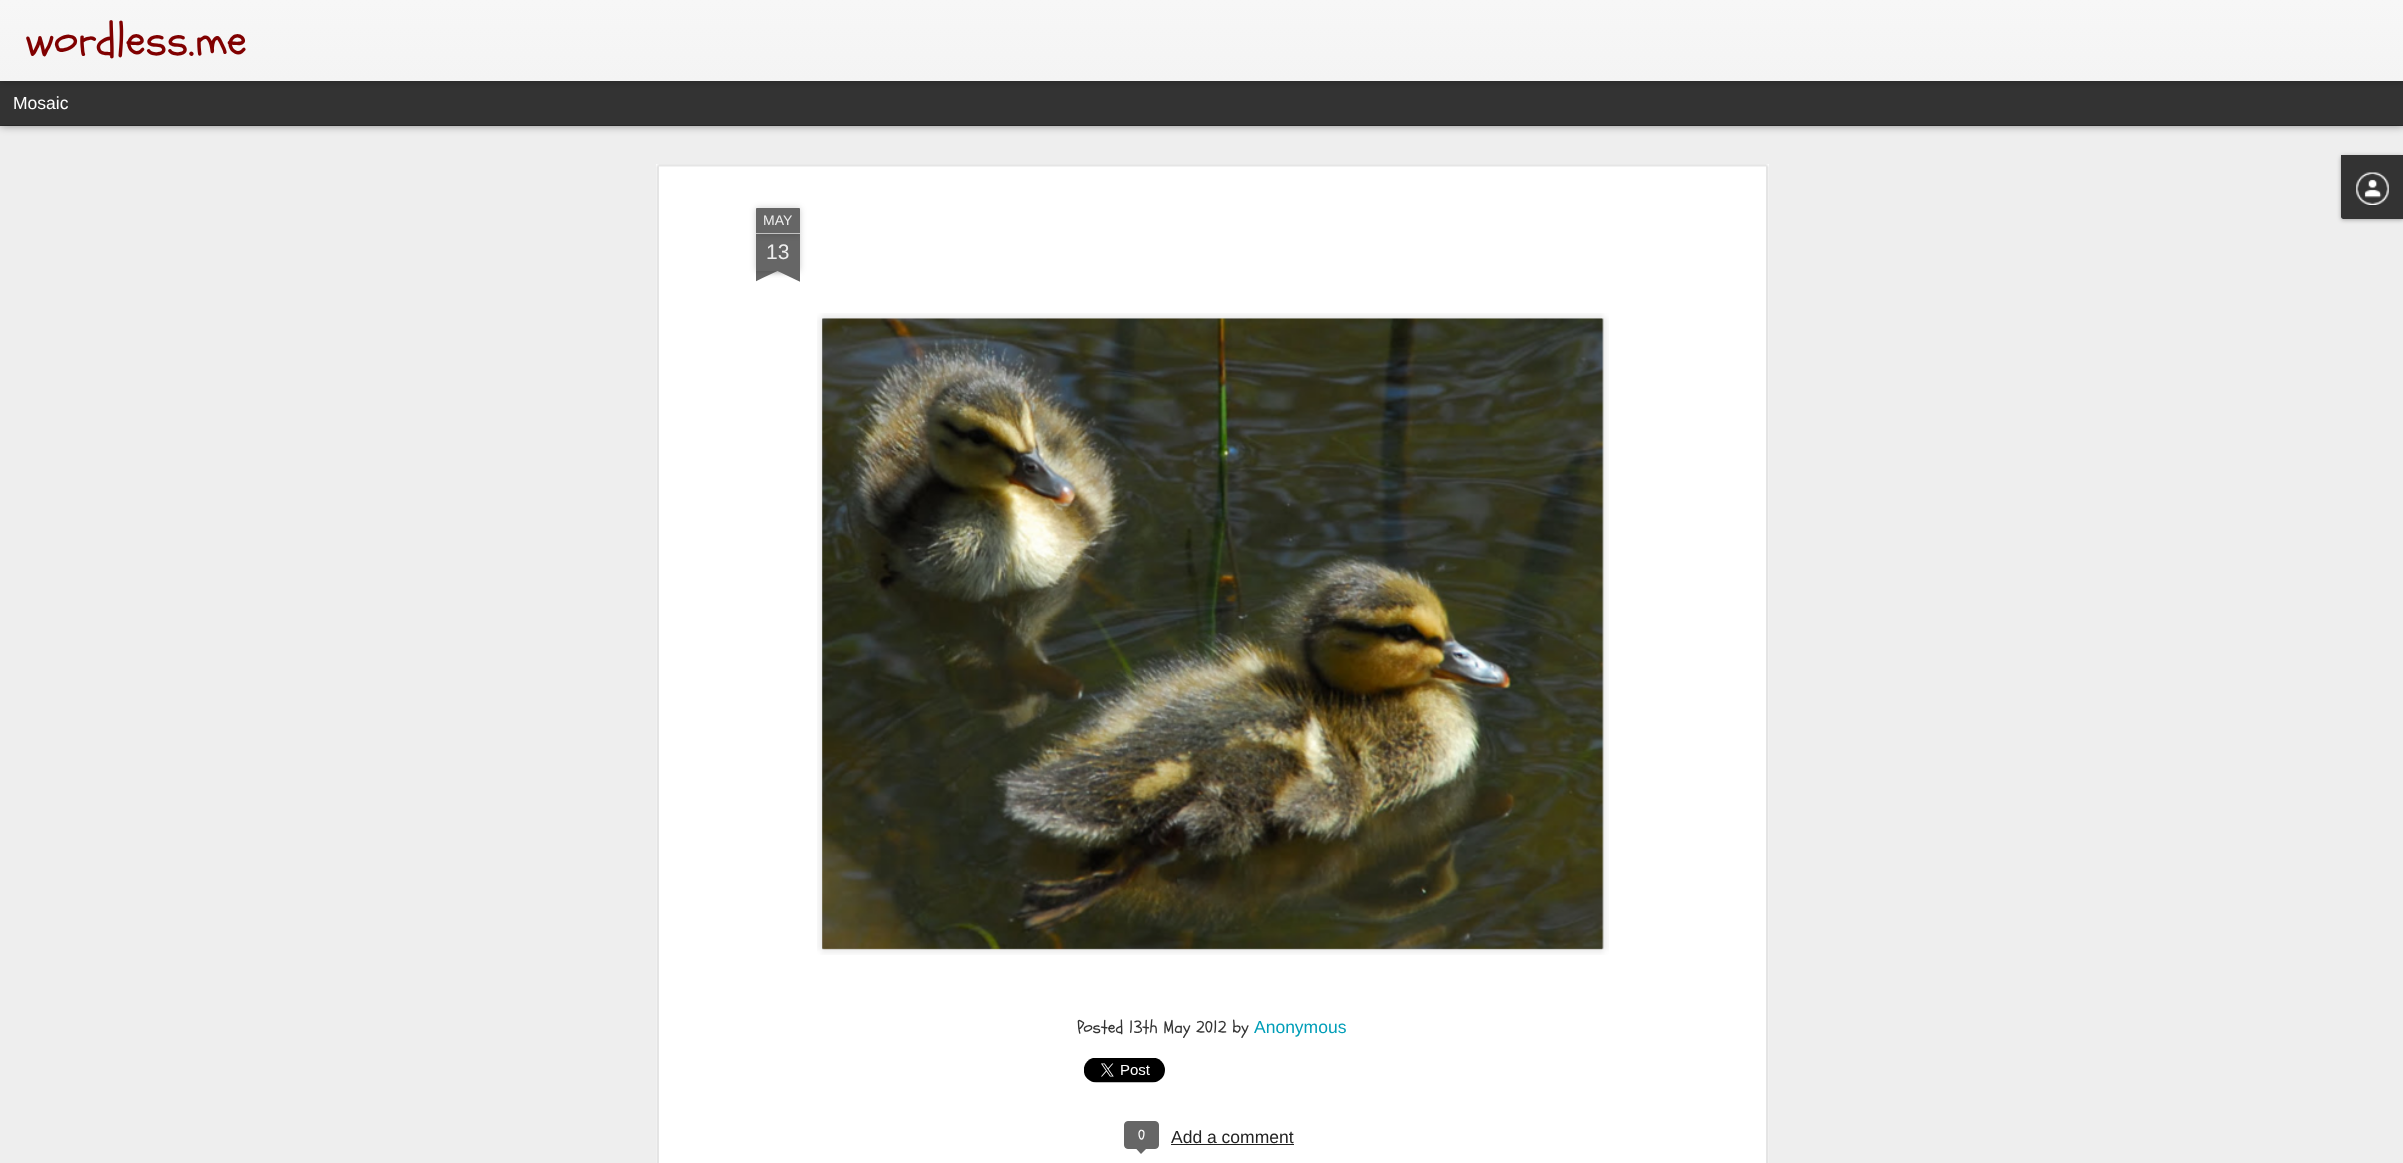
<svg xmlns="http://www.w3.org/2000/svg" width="2403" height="1163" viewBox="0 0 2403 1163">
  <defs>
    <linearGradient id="g1" gradientUnits="userSpaceOnUse" x1="0" y1="0" x2="0" y2="81"><stop offset="0" stop-color="#f7f7f7"/><stop offset="1" stop-color="#f4f4f4"/></linearGradient>
    <clipPath id="clip1"><path d="M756 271h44v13H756z"/></clipPath>
    <clipPath id="clip2"><path d="M756 271h44v13H756z"/></clipPath>
  </defs>
  <rect width="100%" height="100%" fill="#333"/>
  <path d="M0 126h2403v1037H0z" fill="#eee"/>
  <path d="M0 81h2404v44H0z" fill="#00000080" filter="blur(5px)"/>
  <path d="M0 81h2403v44H0z" fill="#333"/>
  <path d="M0 0h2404v81H0z" fill="#0000004d" filter="blur(3px)"/>
  <path d="M0 0h2403v81H0z" fill="url(#g1)"/>
  <rect x="2341" y="156" width="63" height="64" rx="2.5" fill="#0000004d" filter="blur(2px)"/>
  <path d="M2341 155H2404V219H2343.5C2342 219 2341 218 2341 216.5Z" fill="#333"/>
  <image x="2356" y="172" width="33" height="33" href="img/1.png"/>
  <path d="M656 164h1113v999H656z" fill="#fff"/>
  <image x="656" y="164" width="1113" height="999" href="img/2.png"/>
  <path d="M756 234h44v37H756z" fill="#00000033" filter="blur(3px)"/>
  <path d="M756 234h44v37H756z" fill="#666"/>
  <rect x="756" y="208" width="44" height="26" rx="1" fill="#00000033" filter="blur(3px)"/>
  <path d="M757 208H799C799.5 208 800 208.5 800 209V234H756V209C756 208.5 756.5 208 757 208Z" fill="#666"/>
  <path d="M756 233h44v1H756z" fill="#c2c2c2"/>
  <g clip-path="url(#clip1)">
    <path d="M745 259h63v12H745z" fill="#00000033" filter="blur(3px)"/>
  </g>
  <g clip-path="url(#clip2)">
    <path d="M745 273L801 246L807 257L750 284Z" fill="#666"/>
  </g>
  <g clip-path="url(#clip1)">
    <path d="M749 259h62v12H749z" fill="#00000033" filter="blur(3px)"/>
  </g>
  <g clip-path="url(#clip2)">
    <path d="M754 246L810 273L805 284L748 257Z" fill="#666"/>
  </g>
  <image x="817" y="313" width="792" height="642" href="img/3.png"/>
  <image x="822" y="318" width="782" height="632" href="img/4.png"/>
  <image x="1084" y="1058" width="81" height="25" href="img/5.png"/>
  <rect x="1124.5" y="1121.5" width="34" height="27" rx="3.5" fill="#666" stroke="#666"/>
  <path d="M1135 1147.5H1147.5L1141 1154Z" fill="#666"/>
  <path d="M1171 1144h123v1H1171z" fill="#222"/>
  <text x="25" y="55" font-family="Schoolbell" font-size="45" fill="#800000">wordless.me</text>
  <text x="13" y="109" font-family="Liberation Sans" font-size="17.5" fill="#fff">Mosaic</text>
  <text x="763" y="225" font-family="Liberation Sans" font-size="14" fill="#eee">MAY</text>
  <text x="766" y="259" font-family="Liberation Sans" font-size="21" fill="#eee">13</text>
  <text x="1077" y="1033" font-family="Schoolbell" font-size="17.5" fill="#333">Posted 13th May 2012 by</text>
  <text x="1254" y="1033" font-family="Liberation Sans" font-size="17.5" fill="#009eb8">Anonymous</text>
  <text x="1138" y="1140" font-family="Schoolbell" font-size="15" fill="#fff">0</text>
  <text x="1171" y="1143" font-family="Liberation Sans" font-size="17.5" fill="#222">Add a comment</text>
</svg>
